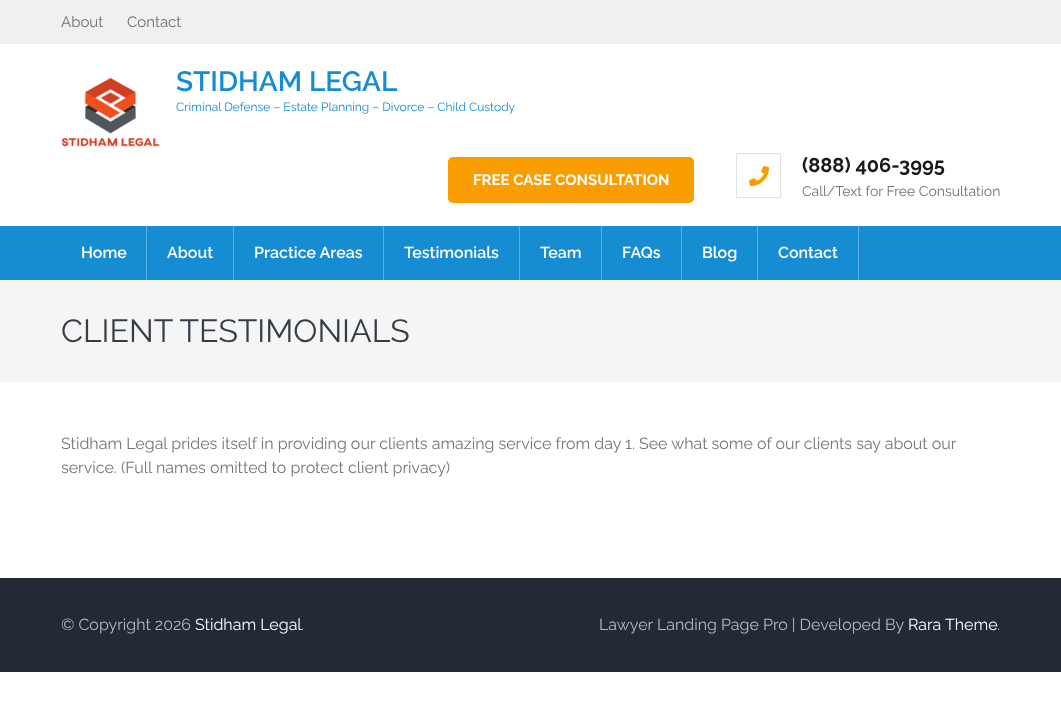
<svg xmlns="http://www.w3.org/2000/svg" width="1061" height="703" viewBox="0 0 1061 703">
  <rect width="100%" height="100%" fill="#fff"/>
  <path d="M0 0h1061v44H0z" fill="#f0f0f0"/>
  <image x="61" y="77" width="99" height="70" href="img/1.png"/>
  <rect x="448" y="157" width="246" height="46" rx="5" fill="#fa9d00"/>
  <image x="749" y="166" width="20" height="20" href="img/2.png"/>
  <path d="M736.5 153.5h44v44H736.5z" fill="none" stroke="#e1e1e1"/>
  <path d="M0 226h1061v54H0z" fill="#168dd2"/>
  <path d="M146 226h1v54H146z" fill="#5cafe0"/>
  <path d="M233 226h1v54H233z" fill="#5cafe0"/>
  <path d="M383 226h1v54H383z" fill="#5cafe0"/>
  <path d="M519 226h1v54H519z" fill="#5cafe0"/>
  <path d="M601 226h1v54H601z" fill="#5cafe0"/>
  <path d="M681 226h1v54H681z" fill="#5cafe0"/>
  <path d="M757 226h1v54H757z" fill="#5cafe0"/>
  <path d="M858 226h1v54H858z" fill="#5cafe0"/>
  <path d="M0 280h1061v102H0z" fill="#f5f5f5"/>
  <path d="M0 578h1061v94H0z" fill="#212a35"/>
  <g font-family="Raleway" font-size="15" fill="#6e7174">
    <text x="61" y="27">About</text>
    <text x="127" y="27">Contact</text>
  </g>
  <text x="176" y="91" font-family="Raleway" font-size="28" font-weight="600" fill="#168dd2">STIDHAM LEGAL</text>
  <text x="176" y="111" font-family="Raleway" font-size="12" fill="#168dd2">Criminal Defense – Estate Planning – Divorce – Child Custody</text>
  <text x="473" y="185" font-family="Raleway" font-size="15" font-weight="bold" fill="#fff">FREE CASE CONSULTATION</text>
  <text x="802" y="172" font-family="Raleway" font-size="20" font-weight="bold" fill="#191a1b">(888) 406-3995</text>
  <text x="802" y="196" font-family="Raleway" font-size="14" fill="#6e7174">Call/Text for Free Consultation</text>
  <g font-family="Raleway" font-size="16" font-weight="600" fill="#fff">
    <text x="81" y="258">Home</text>
    <text x="167" y="258">About</text>
    <text x="254" y="258">Practice Areas</text>
    <text x="404" y="258">Testimonials</text>
    <text x="540" y="258">Team</text>
    <text x="622" y="258">FAQs</text>
    <text x="702" y="258">Blog</text>
    <text x="778" y="258">Contact</text>
  </g>
  <text x="61" y="342" font-family="Raleway" font-size="32" fill="#353d47">CLIENT TESTIMONIALS</text>
  <g font-family="Raleway" font-size="16" fill="#757575">
    <text x="61" y="449">Stidham Legal prides itself in providing our clients amazing service from day 1. See what some of our clients say about our</text>
    <text x="61" y="473">service. (Full names omitted to protect client privacy)</text>
  </g>
  <text x="61" y="630" font-family="Raleway" font-size="16" fill="#b7babc">© Copyright 2026</text>
  <text x="195" y="630" font-family="Raleway" font-size="16" fill="#fff">Stidham Legal</text>
  <g font-family="Raleway" font-size="16" fill="#b7babc">
    <text x="301" y="630">.</text>
    <text x="599" y="630">Lawyer Landing Page Pro | Developed By</text>
  </g>
  <text x="908" y="630" font-family="Raleway" font-size="16" fill="#fff">Rara Theme</text>
  <text x="997" y="630" font-family="Raleway" font-size="16" fill="#b7babc">.</text>
</svg>
